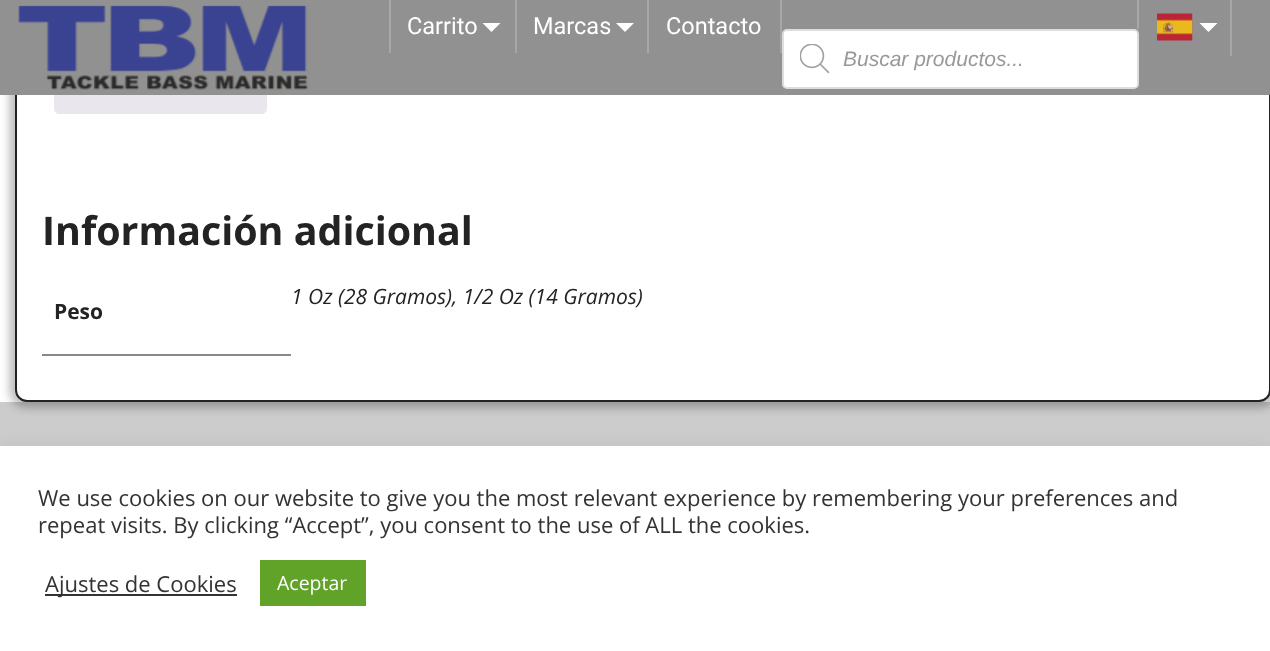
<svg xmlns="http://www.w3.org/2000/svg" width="1270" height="651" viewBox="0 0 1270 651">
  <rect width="100%" height="100%" fill="#fff"/>
  <path d="M0 402h1270v44H0z" fill="#ccc"/>
  <rect x="9" y="-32" width="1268" height="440" rx="18" fill="#00000040" filter="blur(4.5px)"/>
  <rect x="16" y="-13" width="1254" height="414" rx="11" fill="#fff" stroke="#222" stroke-width="2"/>
  <rect x="54" y="66" width="213" height="48" rx="5" fill="#e9e6ed"/>
  <path d="M0 0h1270v95H0z" fill="#919191"/>
  <image x="18" y="5" width="290" height="85" href="img/1.png"/>
  <path d="M389 0h2v53H389z" fill="#a7a7a7"/>
  <path d="M515 0h2v53H515z" fill="#a7a7a7"/>
  <path d="M482.5 23H500.5L491.5 32Z" fill="#fff"/>
  <path d="M647 0h2v53H647z" fill="#a7a7a7"/>
  <path d="M616 23H634L625 32Z" fill="#fff"/>
  <path d="M780 0h2v53H780z" fill="#a7a7a7"/>
  <path d="M1230 0h2v56H1230z" fill="#a7a7a7"/>
  <image x="1157" y="13" width="36" height="28" href="img/2.png"/>
  <path d="M1199.5 23H1217.5L1208.5 32Z" fill="#fff"/>
  <path d="M1137 0h2v29H1137z" fill="#a7a7a7"/>
  <rect x="783" y="30" width="355" height="58" rx="4" fill="#fff" stroke="#ddd" stroke-width="2"/>
  <image x="800" y="44" width="30" height="30" href="img/3.png"/>
  <path d="M42 354h249v2H42z" fill="#888"/>
  <path d="M0 444h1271v206H0z" fill="#acabab4d" filter="blur(7.5px)"/>
  <path d="M0 446h1270v205H0z" fill="#fff"/>
  <path d="M45 594h192v2H45z" fill="#333"/>
  <path d="M260 560h106v46H260z" fill="#61a229"/>
  <g font-family="Roboto" font-size="23.5" fill="#fff">
    <text x="407" y="34">Carrito</text>
    <text x="533" y="34">Marcas</text>
    <text x="666" y="34">Contacto</text>
  </g>
  <text x="843" y="66" font-family="Liberation Sans" font-size="21" font-style="italic" fill="#999">Buscar productos...</text>
  <text x="42" y="245" font-family="Open Sans" font-size="39.4" font-weight="bold" fill="#232323">Información adicional</text>
  <text x="291" y="304" font-family="Open Sans" font-size="21" font-style="italic" fill="#232323">1 Oz (28 Gramos), 1/2 Oz (14 Gramos)</text>
  <text x="54" y="319" font-family="Open Sans" font-size="21" font-weight="bold" fill="#232323">Peso</text>
  <g font-family="Open Sans" font-size="22" fill="#333">
    <text x="38" y="506">We use cookies on our website to give you the most relevant experience by remembering your preferences and</text>
    <text x="38" y="533">repeat visits. By clicking “Accept”, you consent to the use of ALL the cookies.</text>
    <text x="45" y="592">Ajustes de Cookies</text>
  </g>
  <text x="277" y="590" font-family="Open Sans" font-size="19.5" fill="#fff">Aceptar</text>
</svg>
